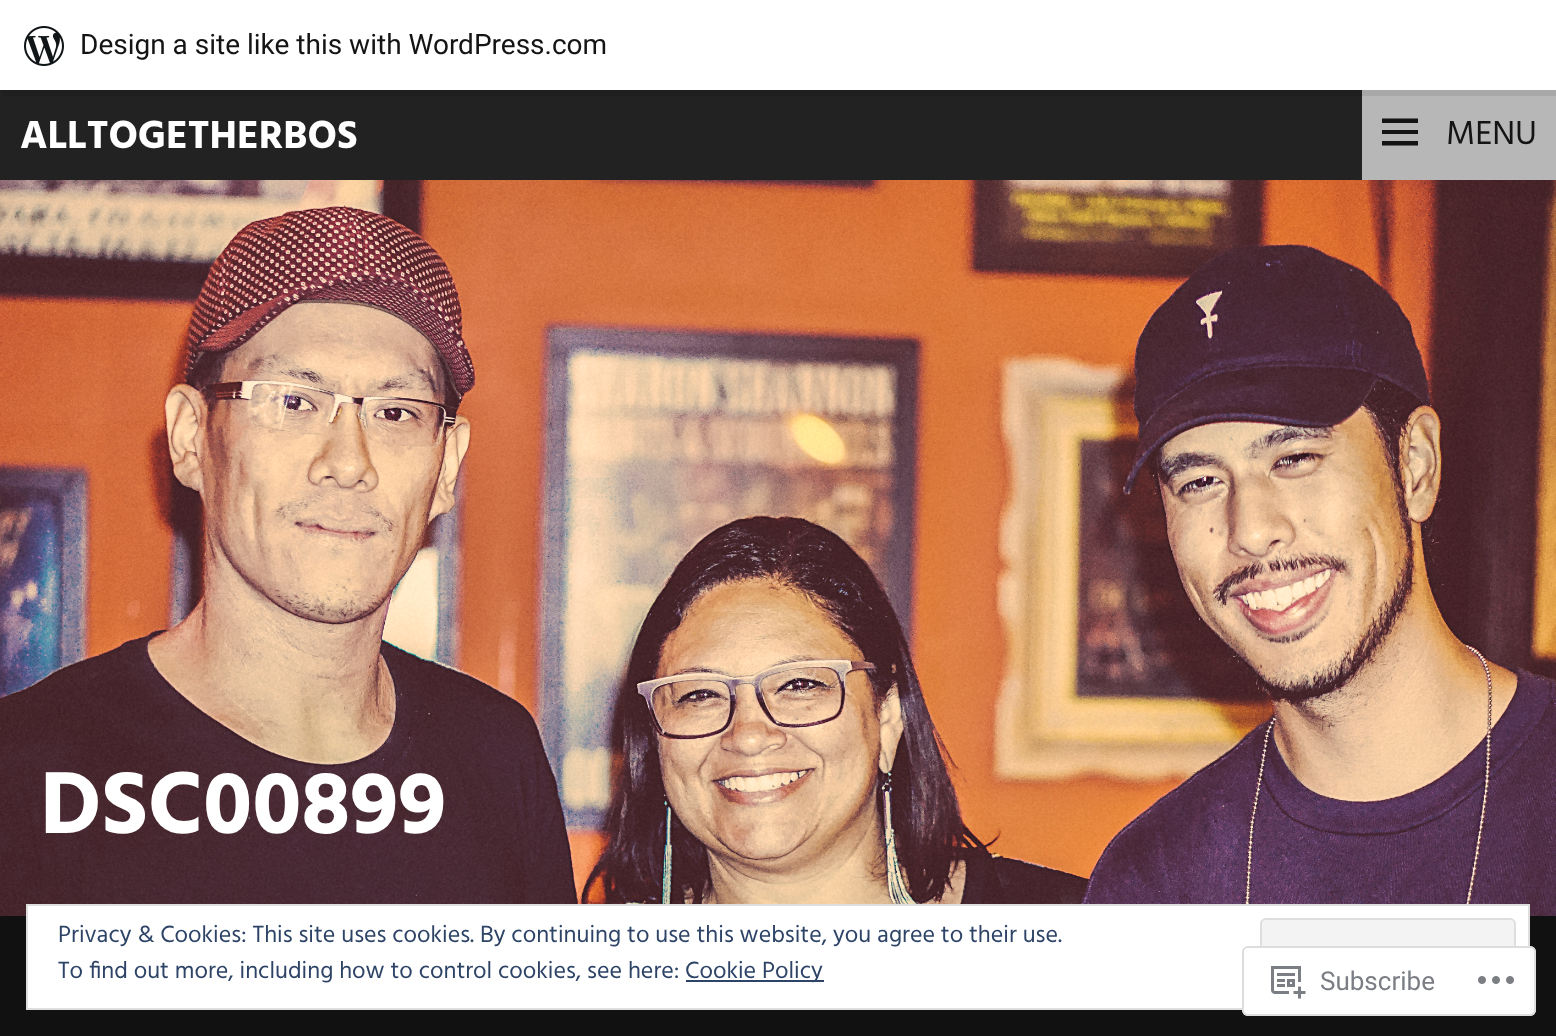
<svg xmlns="http://www.w3.org/2000/svg" width="1556" height="1036" viewBox="0 0 1556 1036">
  <rect width="100%" height="100%" fill="#fff"/>
  <path d="M0 90h1362v90H0z" fill="#222"/>
  <path d="M1362 90h194v90H1362z" fill="#b7b7b7"/>
  <path d="M2 90V96H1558V6H1556V90Z" fill="#00000014"/>
  <image x="24" y="26" width="40" height="40" href="img/1.png"/>
  <path d="M1382 145.5V141H1418V145.5ZM1382 118.5H1418V123H1382ZM1382 134V130H1418V134Z" fill="#141414"/>
  <image x="0" y="180" width="1556" height="736" href="img/2.png"/>
  <path d="M0 916h1556v120H0z" fill="#111"/>
  <path d="M27 905h1502v104H27z" fill="#fff" stroke="#dedede" stroke-width="2"/>
  <rect x="1261" y="919" width="254" height="76" rx="5" fill="#f3f3f3" stroke="#dedede" stroke-width="2"/>
  <path d="M686 980h138v2H686z" fill="#2e4467"/>
  <rect x="1242" y="946" width="294" height="70" rx="6" fill="#fffffffa"/>
  <rect x="1243" y="947" width="292" height="68" rx="5" fill="none" stroke="#dcdcdefa" stroke-width="2"/>
  <image x="1271" y="966" width="35" height="33" href="img/3.png"/>
  <image x="1478" y="976" width="36" height="8" href="img/4.png"/>
  <text x="80" y="54" font-family="Roboto" font-size="28" fill="#141414">Design a site like this with WordPress.com</text>
  <text x="20" y="148" font-family="Hind" font-size="40" font-weight="bold" fill="#fff">ALLTOGETHERBOS</text>
  <text x="1446" y="144" font-family="Hind" font-size="34" fill="#141414">MENU</text>
  <text x="40" y="833" font-family="Hind" font-size="90" font-weight="bold" fill="#fff">DSC00899</text>
  <g font-family="Hind" font-size="24" fill="#2e4467">
    <text x="58" y="942">Privacy &amp; Cookies: This site uses cookies. By continuing to use this website, you agree to their use.</text>
    <text x="58" y="978">To find out more, including how to control cookies, see here:</text>
    <text x="685" y="978">Cookie Policy</text>
  </g>
  <text x="1320" y="990" font-family="Roboto" font-size="26" fill="#7a7e84">Subscribe</text>
</svg>
